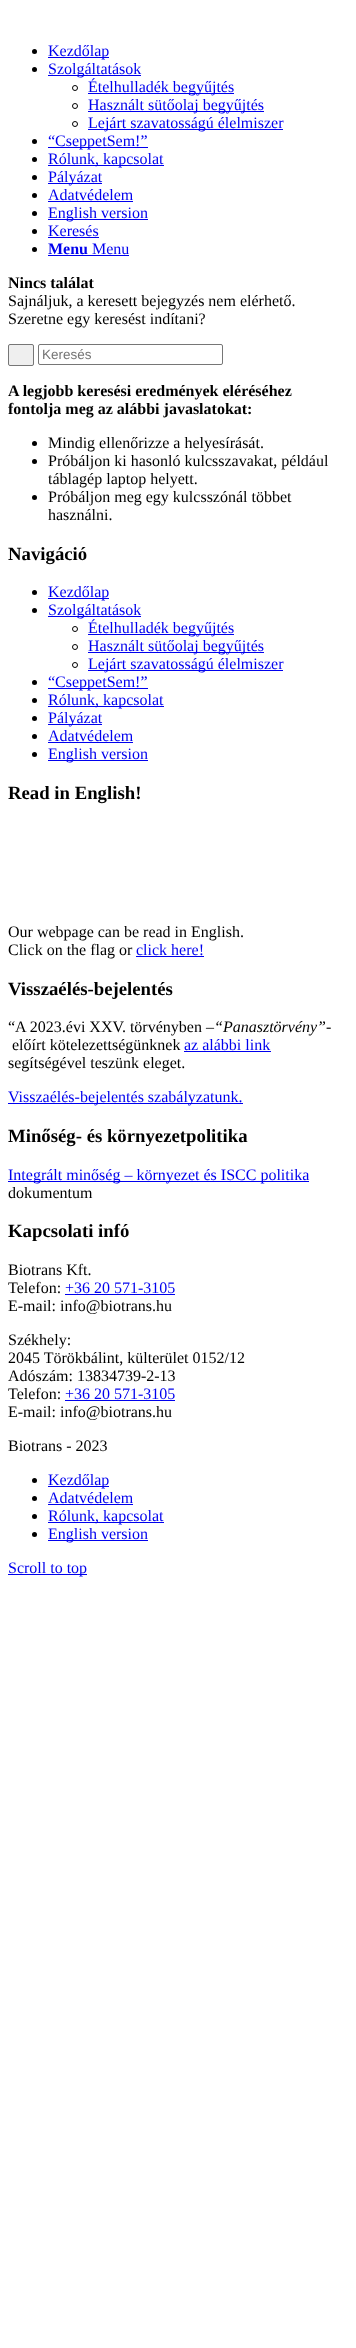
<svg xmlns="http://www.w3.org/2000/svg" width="356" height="2348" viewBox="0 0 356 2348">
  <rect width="100%" height="100%" fill="#fff"/>
  <circle cx="34.5" cy="51.5" r="2.5" fill="#000"/>
  <path d="M48 57h61v1H48z" fill="#00e"/>
  <circle cx="34.5" cy="69.5" r="2.5" fill="#000"/>
  <path d="M48 75h93v1H48z" fill="#00e"/>
  <circle cx="75" cy="88" r="2.5" fill="none" stroke="#000"/>
  <path d="M88 93h146v1H88z" fill="#00e"/>
  <circle cx="75" cy="106" r="2.5" fill="none" stroke="#000"/>
  <path d="M88 111h176v1H88z" fill="#00e"/>
  <circle cx="75" cy="124" r="2.5" fill="none" stroke="#000"/>
  <path d="M88 129h195v1H88z" fill="#00e"/>
  <circle cx="34.5" cy="141.5" r="2.5" fill="#000"/>
  <path d="M48 147h100v1H48z" fill="#00e"/>
  <circle cx="34.5" cy="159.5" r="2.5" fill="#000"/>
  <path d="M48 165h116v1H48z" fill="#00e"/>
  <circle cx="34.5" cy="177.5" r="2.5" fill="#000"/>
  <path d="M48 183h54v1H48z" fill="#00e"/>
  <circle cx="34.5" cy="195.5" r="2.5" fill="#000"/>
  <path d="M48 201h85v1H48z" fill="#00e"/>
  <circle cx="34.5" cy="213.5" r="2.5" fill="#000"/>
  <path d="M48 219h100v1H48z" fill="#00e"/>
  <circle cx="34.5" cy="231.5" r="2.5" fill="#000"/>
  <path d="M48 237h51v1H48z" fill="#00e"/>
  <circle cx="34.5" cy="249.5" r="2.5" fill="#000"/>
  <path d="M48 255h81v1H48z" fill="#00e"/>
  <rect x="8.5" y="344.5" width="25" height="21" rx="1.5" fill="#efefef" stroke="#767676"/>
  <rect x="38.5" y="344.5" width="184" height="20" rx="1.5" fill="none" stroke="#767676"/>
  <circle cx="34.5" cy="443.5" r="2.5" fill="#000"/>
  <circle cx="34.5" cy="461.5" r="2.5" fill="#000"/>
  <circle cx="34.5" cy="497.5" r="2.5" fill="#000"/>
  <circle cx="34.5" cy="592.5" r="2.5" fill="#000"/>
  <path d="M48 598h61v1H48z" fill="#00e"/>
  <circle cx="34.5" cy="610.5" r="2.5" fill="#000"/>
  <path d="M48 616h93v1H48z" fill="#00e"/>
  <circle cx="75" cy="629" r="2.5" fill="none" stroke="#000"/>
  <path d="M88 634h146v1H88z" fill="#00e"/>
  <circle cx="75" cy="647" r="2.5" fill="none" stroke="#000"/>
  <path d="M88 652h176v1H88z" fill="#00e"/>
  <circle cx="75" cy="665" r="2.5" fill="none" stroke="#000"/>
  <path d="M88 670h195v1H88z" fill="#00e"/>
  <circle cx="34.5" cy="682.5" r="2.5" fill="#000"/>
  <path d="M48 688h100v1H48z" fill="#00e"/>
  <circle cx="34.5" cy="700.5" r="2.5" fill="#000"/>
  <path d="M48 706h116v1H48z" fill="#00e"/>
  <circle cx="34.5" cy="718.5" r="2.5" fill="#000"/>
  <path d="M48 724h54v1H48z" fill="#00e"/>
  <circle cx="34.5" cy="736.5" r="2.5" fill="#000"/>
  <path d="M48 742h85v1H48z" fill="#00e"/>
  <circle cx="34.5" cy="754.5" r="2.5" fill="#000"/>
  <path d="M48 760h100v1H48z" fill="#00e"/>
  <path d="M136 956h68v1H136z" fill="#00e"/>
  <path d="M184 1051h87v1H184z" fill="#00e"/>
  <path d="M8 1103h235v1H8z" fill="#00e"/>
  <path d="M8 1181h301v1H8z" fill="#00e"/>
  <path d="M65 1294h110v1H65z" fill="#00e"/>
  <path d="M65 1400h110v1H65z" fill="#00e"/>
  <circle cx="34.5" cy="1480.5" r="2.5" fill="#000"/>
  <path d="M48 1486h61v1H48z" fill="#00e"/>
  <circle cx="34.5" cy="1498.5" r="2.5" fill="#000"/>
  <path d="M48 1504h85v1H48z" fill="#00e"/>
  <circle cx="34.5" cy="1516.5" r="2.5" fill="#000"/>
  <path d="M48 1522h116v1H48z" fill="#00e"/>
  <circle cx="34.5" cy="1534.5" r="2.5" fill="#000"/>
  <path d="M48 1540h100v1H48z" fill="#00e"/>
  <path d="M8 1574h79v1H8z" fill="#00e"/>
  <g font-family="Liberation Serif" font-size="16" fill="#00e">
    <text x="48" y="56">Kezdőlap</text>
    <text x="48" y="74">Szolgáltatások</text>
    <text x="88" y="92">Ételhulladék begyűjtés</text>
    <text x="88" y="110">Használt sütőolaj begyűjtés</text>
    <text x="88" y="128">Lejárt szavatosságú élelmiszer</text>
    <text x="48" y="146">“CseppetSem!”</text>
    <text x="48" y="164">Rólunk, kapcsolat</text>
    <text x="48" y="182">Pályázat</text>
    <text x="48" y="200">Adatvédelem</text>
    <text x="48" y="218">English version</text>
    <text x="48" y="236">Keresés</text>
  </g>
  <text x="48" y="254" font-family="Liberation Serif" font-size="16" font-weight="bold" fill="#00e">Menu</text>
  <text x="92" y="254" font-family="Liberation Serif" font-size="16" fill="#00e">Menu</text>
  <text x="8" y="288" font-family="Liberation Serif" font-size="16" font-weight="bold" fill="#000">Nincs találat</text>
  <g font-family="Liberation Serif" font-size="16" fill="#000">
    <text x="8" y="306">Sajnáljuk, a keresett bejegyzés nem elérhető.</text>
    <text x="8" y="324">Szeretne egy keresést indítani?</text>
  </g>
  <text x="42" y="359" font-family="Liberation Sans" font-size="13.5" fill="#757575">Keresés</text>
  <g font-family="Liberation Serif" font-size="16" font-weight="bold" fill="#000">
    <text x="8" y="396">A legjobb keresési eredmények eléréséhez</text>
    <text x="8" y="414">fontolja meg az alábbi javaslatokat:</text>
  </g>
  <g font-family="Liberation Serif" font-size="16" fill="#000">
    <text x="48" y="448">Mindig ellenőrizze a helyesírását.</text>
    <text x="48" y="466">Próbáljon ki hasonló kulcsszavakat, például</text>
    <text x="48" y="484">táblagép laptop helyett.</text>
    <text x="48" y="502">Próbáljon meg egy kulcsszónál többet</text>
    <text x="48" y="520">használni.</text>
  </g>
  <text x="8" y="560" font-family="Liberation Serif" font-size="18.75" font-weight="bold" fill="#000">Navigáció</text>
  <g font-family="Liberation Serif" font-size="16" fill="#00e">
    <text x="48" y="597">Kezdőlap</text>
    <text x="48" y="615">Szolgáltatások</text>
    <text x="88" y="633">Ételhulladék begyűjtés</text>
    <text x="88" y="651">Használt sütőolaj begyűjtés</text>
    <text x="88" y="669">Lejárt szavatosságú élelmiszer</text>
    <text x="48" y="687">“CseppetSem!”</text>
    <text x="48" y="705">Rólunk, kapcsolat</text>
    <text x="48" y="723">Pályázat</text>
    <text x="48" y="741">Adatvédelem</text>
    <text x="48" y="759">English version</text>
  </g>
  <text x="8" y="799" font-family="Liberation Serif" font-size="18.75" font-weight="bold" fill="#000">Read in English!</text>
  <g font-family="Liberation Serif" font-size="16" fill="#000">
    <text x="8" y="937">Our webpage can be read in English.</text>
    <text x="8" y="955">Click on the flag or</text>
  </g>
  <text x="136" y="955" font-family="Liberation Serif" font-size="16" fill="#00e">click here!</text>
  <text x="8" y="995" font-family="Liberation Serif" font-size="18.75" font-weight="bold" fill="#000">Visszaélés-bejelentés</text>
  <text x="8" y="1032" font-family="Liberation Serif" font-size="16" fill="#000">“A 2023.évi XXV. törvényben –</text>
  <text x="214" y="1032" font-family="Liberation Serif" font-size="16" font-style="italic" fill="#000">“Panasztörvény”-</text>
  <text x="12" y="1050" font-family="Liberation Serif" font-size="16" fill="#000">előírt kötelezettségünknek</text>
  <text x="184" y="1050" font-family="Liberation Serif" font-size="16" fill="#00e">az alábbi link</text>
  <text x="8" y="1068" font-family="Liberation Serif" font-size="16" fill="#000">segítségével teszünk eleget.</text>
  <text x="8" y="1102" font-family="Liberation Serif" font-size="16" fill="#00e">Visszaélés-bejelentés szabályzatunk.</text>
  <text x="8" y="1142" font-family="Liberation Serif" font-size="18.75" font-weight="bold" fill="#000">Minőség- és környezetpolitika</text>
  <text x="8" y="1180" font-family="Liberation Serif" font-size="16" fill="#00e">Integrált minőség – környezet és ISCC politika</text>
  <text x="8" y="1198" font-family="Liberation Serif" font-size="16" fill="#000">dokumentum</text>
  <text x="8" y="1237" font-family="Liberation Serif" font-size="18.75" font-weight="bold" fill="#000">Kapcsolati infó</text>
  <g font-family="Liberation Serif" font-size="16" fill="#000">
    <text x="8" y="1275">Biotrans Kft.</text>
    <text x="8" y="1293">Telefon:</text>
  </g>
  <text x="65" y="1293" font-family="Liberation Serif" font-size="16" fill="#00e">+36 20 571-3105</text>
  <g font-family="Liberation Serif" font-size="16" fill="#000">
    <text x="8" y="1311">E-mail: info@biotrans.hu</text>
    <text x="8" y="1345">Székhely:</text>
    <text x="8" y="1363">2045 Törökbálint, külterület 0152/12</text>
    <text x="8" y="1381">Adószám: 13834739-2-13</text>
    <text x="8" y="1399">Telefon:</text>
  </g>
  <text x="65" y="1399" font-family="Liberation Serif" font-size="16" fill="#00e">+36 20 571-3105</text>
  <g font-family="Liberation Serif" font-size="16" fill="#000">
    <text x="8" y="1417">E-mail: info@biotrans.hu</text>
    <text x="8" y="1451">Biotrans - 2023</text>
  </g>
  <g font-family="Liberation Serif" font-size="16" fill="#00e">
    <text x="48" y="1485">Kezdőlap</text>
    <text x="48" y="1503">Adatvédelem</text>
    <text x="48" y="1521">Rólunk, kapcsolat</text>
    <text x="48" y="1539">English version</text>
    <text x="8" y="1573">Scroll to top</text>
  </g>
</svg>
